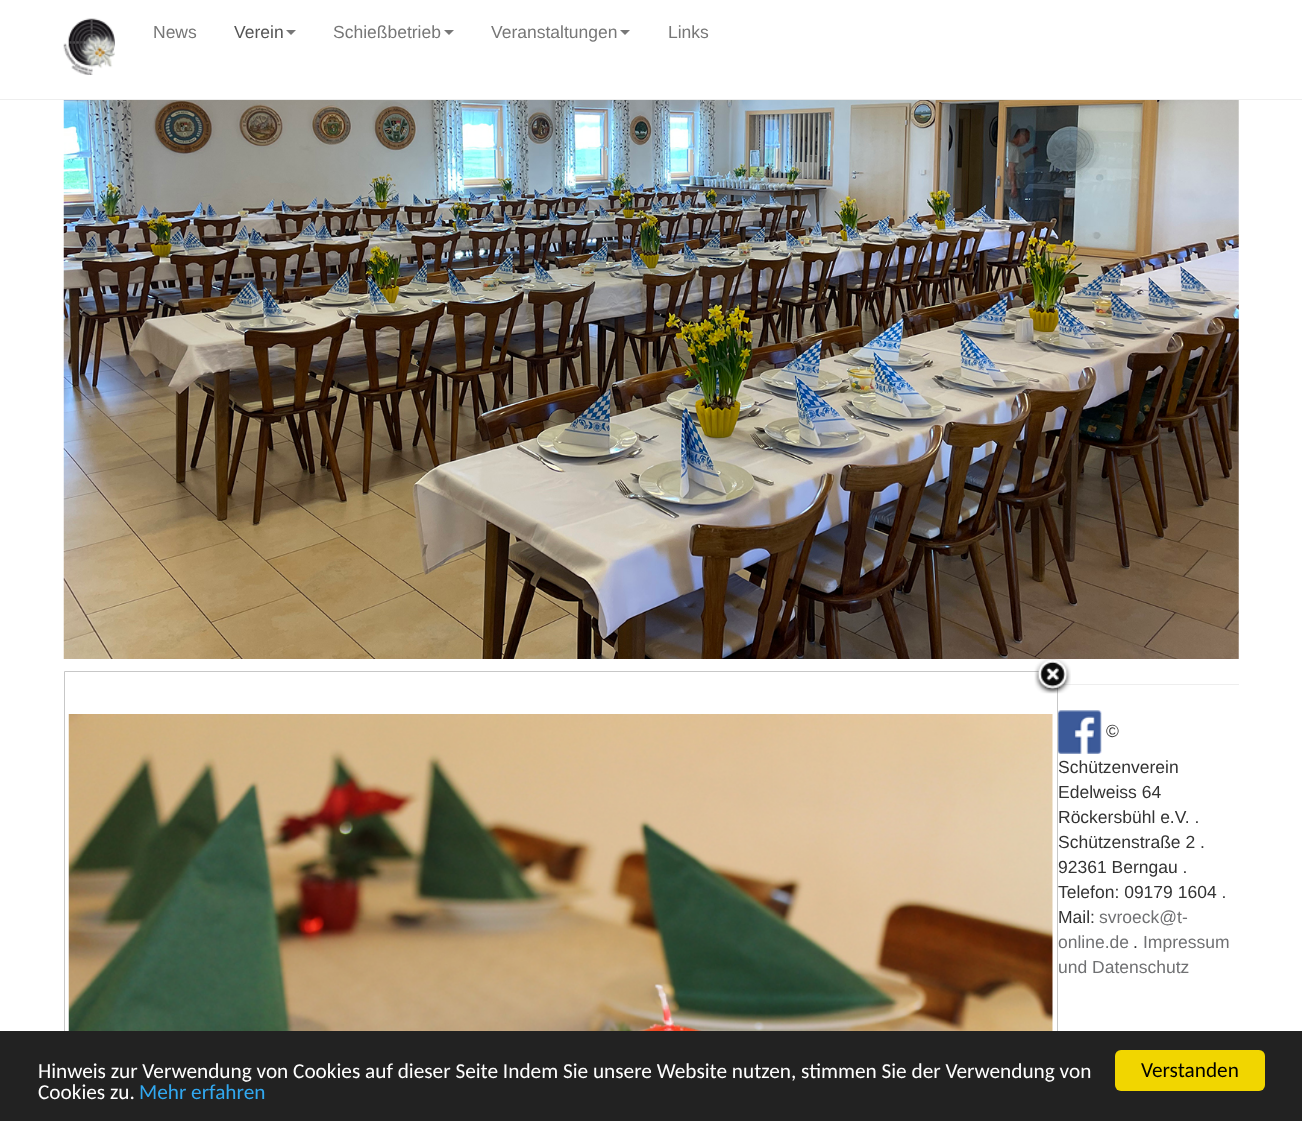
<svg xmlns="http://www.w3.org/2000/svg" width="1302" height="1121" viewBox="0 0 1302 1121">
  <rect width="100%" height="100%" fill="#fff"/>
  <path d="M0 99h1302v1H0z" fill="#eee"/>
  <image x="63" y="18" width="52" height="57" href="img/1.png"/>
  <path d="M286 30H296L291 35Z" fill="#777"/>
  <path d="M444 30H454L449 35Z" fill="#777"/>
  <path d="M620 30H630L625 35Z" fill="#777"/>
  <image x="63" y="100" width="1176" height="559" href="img/2.png"/>
  <path d="M1058 684h181v1H1058z" fill="#eee"/>
  <image x="1058" y="710" width="44" height="44" href="img/5.png"/>
  <text x="153" y="38" font-family="Liberation Sans" font-size="17.5" fill="#777">News</text>
  <text x="234" y="38" font-family="Liberation Sans" font-size="17.5" fill="#555">Verein</text>
  <g font-family="Liberation Sans" font-size="17.5" fill="#777">
    <text x="333" y="38">Schießbetrieb</text>
    <text x="491" y="38">Veranstaltungen</text>
    <text x="668" y="38">Links</text>
  </g>
  <g font-family="Liberation Sans" font-size="17.5" fill="#333">
    <text x="1106" y="737">©</text>
    <text x="1058" y="773">Schützenverein</text>
    <text x="1058" y="798">Edelweiss 64</text>
    <text x="1058" y="823">Röckersbühl e.V. .</text>
    <text x="1058" y="848">Schützenstraße 2 .</text>
    <text x="1058" y="873">92361 Berngau .</text>
    <text x="1058" y="898">Telefon: 09179 1604 .</text>
  </g>
  <path d="M64.5 671.5h993v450H64.5z" fill="none" stroke="#c7c7c7"/>
  <image x="1034" y="659" width="37" height="35" href="img/3.png"/>
  <image x="68" y="714" width="985" height="317" href="img/4.png"/>
  <text x="1058" y="923" font-family="Liberation Sans" font-size="17.5" fill="#333">Mail:</text>
  <g font-family="Liberation Sans" font-size="17.5" fill="#707173">
    <text x="1099" y="923">svroeck@t-</text>
    <text x="1058" y="948">online.de</text>
  </g>
  <text x="1133" y="948" font-family="Liberation Sans" font-size="17.5" fill="#333">.</text>
  <g font-family="Liberation Sans" font-size="17.5" fill="#707173">
    <text x="1143" y="948">Impressum</text>
    <text x="1058" y="973">und Datenschutz</text>
  </g>
  <path d="M0 1031h1302v90H0z" fill="#222"/>
  <g font-family="Carlito" font-size="21.25" fill="#fff">
    <text x="38" y="1078">Hinweis zur Verwendung von Cookies auf dieser Seite Indem Sie unsere Website nutzen, stimmen Sie der Verwendung von</text>
    <text x="38" y="1099">Cookies zu.</text>
  </g>
  <text x="139" y="1099" font-family="Carlito" font-size="21.25" fill="#31a8f0">Mehr erfahren</text>
  <rect x="1115" y="1050" width="150" height="41" rx="6" fill="#f1d600"/>
  <text x="1141" y="1077" font-family="Carlito" font-size="21.25" fill="#000">Verstanden</text>
</svg>
